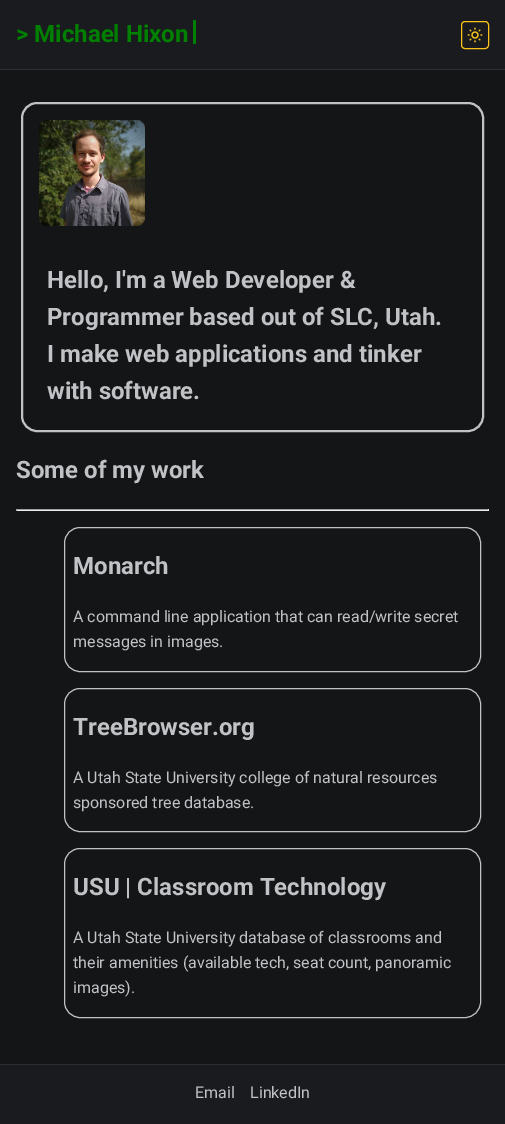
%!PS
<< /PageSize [505 1124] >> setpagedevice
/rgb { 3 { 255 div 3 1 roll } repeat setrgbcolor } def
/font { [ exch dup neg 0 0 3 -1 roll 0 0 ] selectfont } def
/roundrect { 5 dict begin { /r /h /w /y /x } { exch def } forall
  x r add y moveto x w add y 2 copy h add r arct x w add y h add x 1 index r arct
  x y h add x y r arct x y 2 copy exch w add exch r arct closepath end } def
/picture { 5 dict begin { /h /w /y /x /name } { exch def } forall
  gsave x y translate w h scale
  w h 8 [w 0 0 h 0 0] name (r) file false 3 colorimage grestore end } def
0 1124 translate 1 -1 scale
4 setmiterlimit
20 21 23 rgb
0 0 505 1124 rectfill
[
  [0 0 505 69 26 27 30]
  [0 69 505 1 44 46 51]
  [193 20 3 24 0 128 0]
] { aload pop rgb rectfill } forall
252 196 25 rgb
461.5 21.5 27 27 3.5 roundrect stroke
(img/1.rgb) 467 27 16 16 picture
193 194 197 rgb
2 setlinewidth
22 103 461 328 15 roundrect stroke
(img/2.rgb) 39 120 106 106 picture
[
  [16 509 473 1 159 159 159]
  [488 509 1 2 238 238 238]
  [16 510 473 1 238 238 238]
  [16 509 1 2 159 159 159]
] { aload pop rgb rectfill } forall
193 194 197 rgb
1 setlinewidth
64.5 527.5 416 144 15.5 roundrect stroke
64.5 688.5 416 143 15.5 roundrect stroke
64.5 848.5 416 169 15.5 roundrect stroke
26 27 30 rgb
0 1065 505 59 rectfill
44 46 51 rgb
0 1064 505 1 rectfill
/Roboto-Bold 24 font
0 128 0 rgb
16 42 moveto (> Michael Hixon) show
193 194 197 rgb
[
  [(Hello, I'm a Web Developer &) 47 288]
  [(Programmer based out of SLC, Utah.) 47 325]
  [(I make web applications and tinker) 47 362]
  [(with software.) 47 399]
  [(Some of my work) 16 478]
  [(Monarch) 73 574]
] { aload pop moveto show } forall
/Roboto-Regular 16 font
73 622 moveto (A command line application that can read/write secret) show
73 647 moveto (messages in images.) show
/Roboto-Bold 24 font
73 735 moveto (TreeBrowser.org) show
/Roboto-Regular 16 font
73 783 moveto (A Utah State University college of natural resources) show
73 808 moveto (sponsored tree database.) show
/Roboto-Bold 24 font
73 895 moveto (USU | Classroom Technology) show
/Roboto-Regular 16 font
[
  [(A Utah State University database of classrooms and) 73 943]
  [(their amenities \(available tech, seat count, panoramic) 73 968]
  [(images\).) 73 993]
  [(Email) 195 1098]
  [(LinkedIn) 250 1098]
] { aload pop moveto show } forall
showpage
